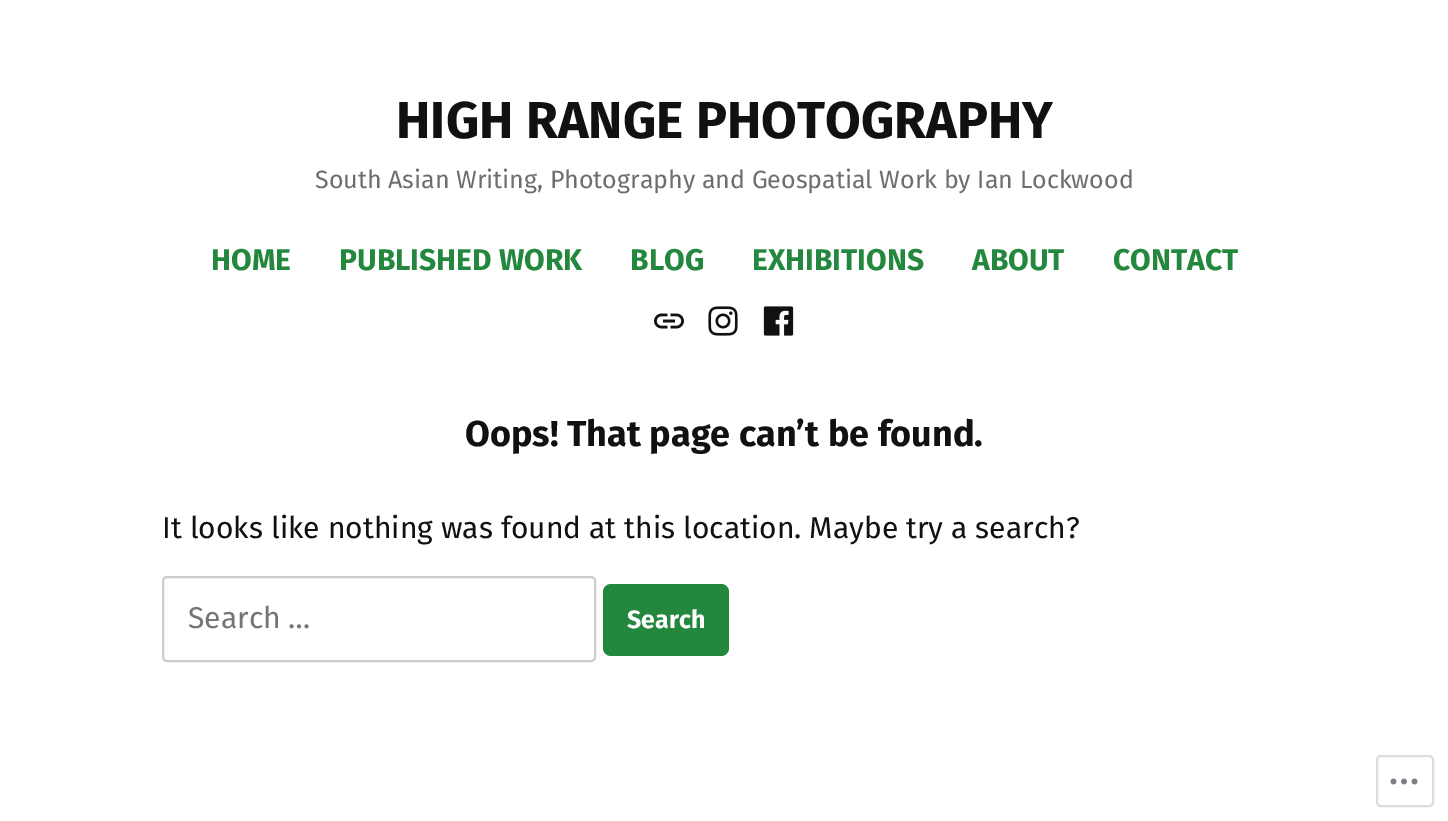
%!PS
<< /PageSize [1448 821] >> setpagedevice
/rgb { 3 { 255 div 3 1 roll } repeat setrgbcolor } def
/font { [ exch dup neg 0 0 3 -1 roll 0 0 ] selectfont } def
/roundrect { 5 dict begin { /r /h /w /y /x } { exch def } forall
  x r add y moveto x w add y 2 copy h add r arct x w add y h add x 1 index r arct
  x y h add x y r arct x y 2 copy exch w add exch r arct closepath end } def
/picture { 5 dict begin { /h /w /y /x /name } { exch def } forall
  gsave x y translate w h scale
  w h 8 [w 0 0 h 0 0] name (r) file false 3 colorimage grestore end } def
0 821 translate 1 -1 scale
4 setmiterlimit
255 255 255 rgb
0 0 1448 821 rectfill
(img/1.rgb) 654 313 30 16 picture
(img/2.rgb) 708 306 30 30 picture
(img/3.rgb) 763 306 31 30 picture
204 204 204 rgb
2 setlinewidth
163 577 432 84 4 roundrect stroke
35 136 61 rgb
603 584 126 72 8 roundrect fill
221 221 223 rgb
1377 756 56 50 4 roundrect stroke
(img/4.rgb) 1390 778 28 7 picture
/FiraSans-Bold 51.8 font
17 17 17 rgb
396 138 moveto (HIGH RANGE PHOTOGRAPHY) show
/FiraSans-Regular 25 font
110 110 110 rgb
315 188 moveto (South Asian Writing, Photography and Geospatial Work by Ian Lockwood) show
/FiraSans-Bold 30 font
35 136 61 rgb
[
  [(HOME) 211 270]
  [(PUBLISHED WORK) 339 270]
  [(BLOG) 630 270]
  [(EXHIBITIONS) 752 270]
  [(ABOUT) 972 270]
  [(CONTACT) 1113 270]
] { aload pop moveto show } forall
/FiraSans-Bold 36 font
17 17 17 rgb
465 446 moveto (Oops! That page can’t be found.) show
/FiraSans-Regular 30 font
162 538 moveto (It looks like nothing was found at this location. Maybe try a search?) show
117 117 117 rgb
188 628 moveto (Search …) show
/FiraSans-Bold 25 font
255 255 255 rgb
627 628 moveto (Search) show
showpage
